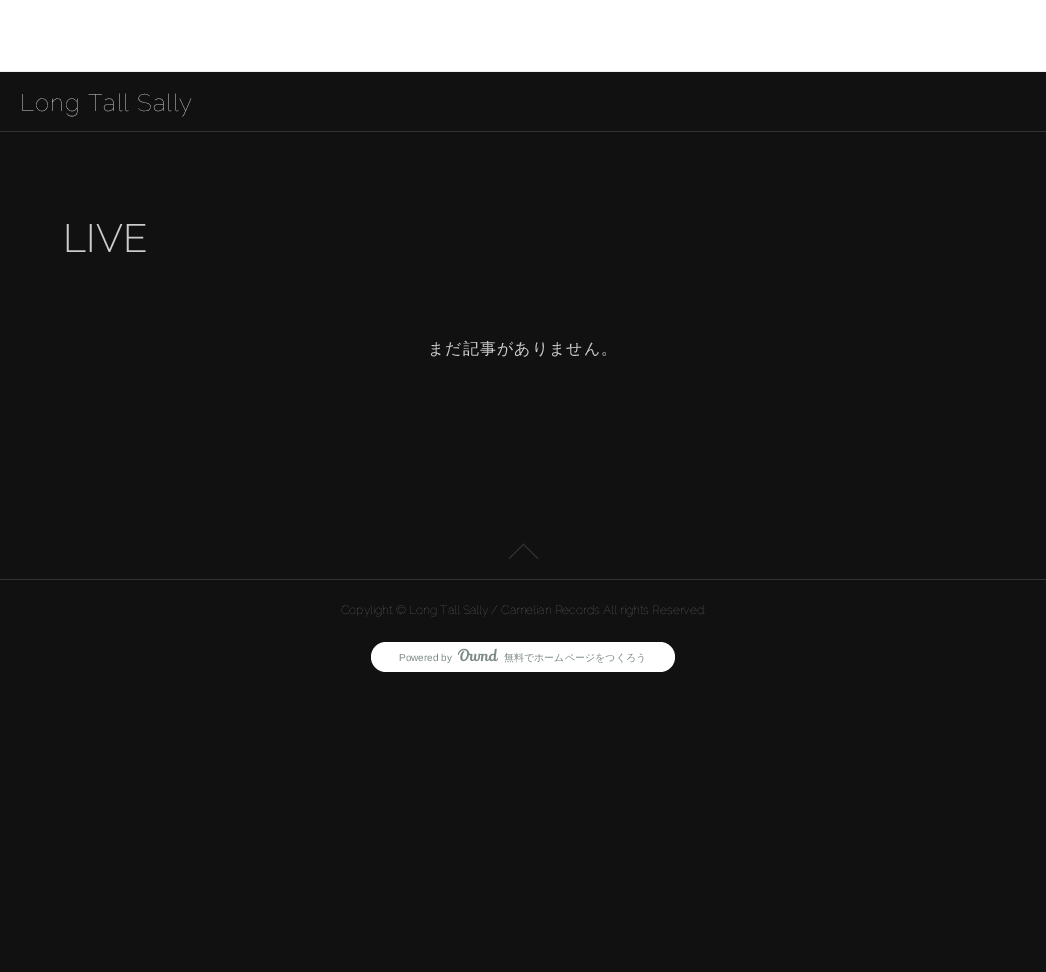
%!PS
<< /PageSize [1046 972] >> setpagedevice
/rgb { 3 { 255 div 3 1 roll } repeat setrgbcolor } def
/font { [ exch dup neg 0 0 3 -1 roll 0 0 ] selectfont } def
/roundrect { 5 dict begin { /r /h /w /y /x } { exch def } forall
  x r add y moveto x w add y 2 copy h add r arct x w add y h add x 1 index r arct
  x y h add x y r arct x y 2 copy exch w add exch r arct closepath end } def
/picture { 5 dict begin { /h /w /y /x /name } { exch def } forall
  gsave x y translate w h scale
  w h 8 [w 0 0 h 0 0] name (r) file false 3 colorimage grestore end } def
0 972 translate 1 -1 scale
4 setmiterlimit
17 17 17 rgb
0 0 1046 972 rectfill
[
  [0 0 1046 71 255 255 255]
  [0 71 1046 1 238 238 238]
  [0 131 1046 1 51 51 51]
] { aload pop rgb rectfill } forall
508.5 558.5 moveto 523.5 543.5 lineto 524 544.5 lineto 509.5 559 lineto closepath fill
523 544.5 moveto 523.5 543.5 lineto 538.5 558.5 lineto 537.5 559 lineto closepath fill
0 579 1046 1 rectfill
255 255 255 rgb
371 642 304 30 15 roundrect fill
(img/1.rgb) 457 648 42 14 picture
/Raleway-Thin 24 font
204 204 204 rgb
20 111 moveto 1 0 (Long Tall Sally) ashow
/Raleway-Bold 38 font
63 252 moveto 1 0 (LIVE) ashow
/WenQuanYiZenHei-Medium 16 font
428 354 moveto 1 0 (まだ記事がありません。) ashow
/Raleway-Thin 12 font
111 111 111 rgb
341 614 moveto (Copylight © Long Tall Sally / Carnelian Records All rights Reserved.) show
/LiberationSans-Regular 10 font
125 139 136 rgb
399 661 moveto (Powered by) show
/WenQuanYiZenHei-Medium 10 font
504 661 moveto (無料でホームページをつくろう) show
showpage
